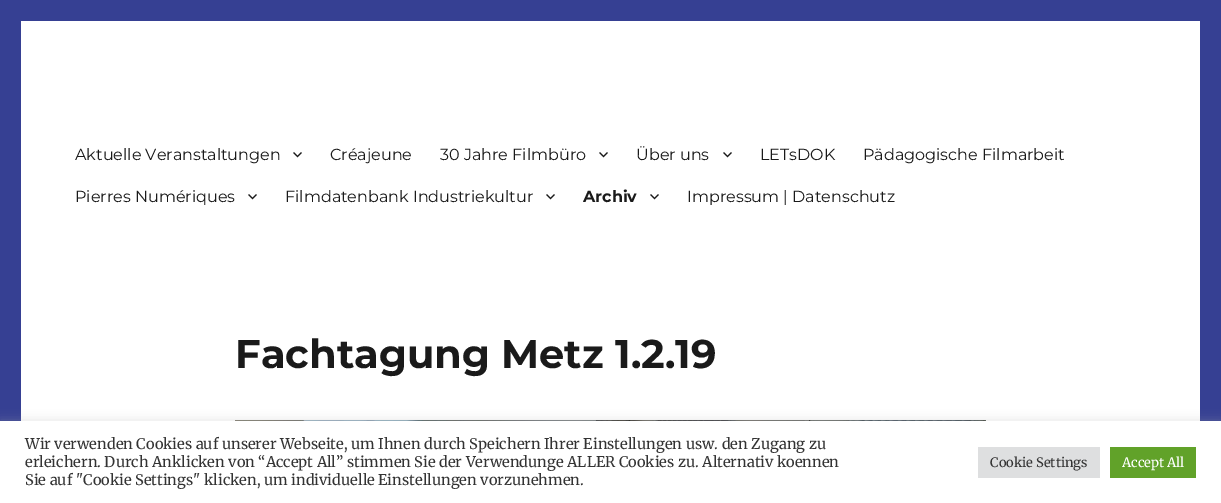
%!PS
<< /PageSize [1221 503] /PageUsesTransparency true >> setpagedevice
/rgb { 3 { 255 div 3 1 roll } repeat setrgbcolor } def
/font { [ exch dup neg 0 0 3 -1 roll 0 0 ] selectfont } def
/alpha { dup .setfillconstantalpha .setstrokeconstantalpha } def
/roundrect { 5 dict begin { /r /h /w /y /x } { exch def } forall
  x r add y moveto x w add y 2 copy h add r arct x w add y h add x 1 index r arct
  x y h add x y r arct x y 2 copy exch w add exch r arct closepath end } def
/shadow { 12 dict begin { /a /b /q /h /w /y /x } { exch def } forall gsave /was 0 def
  9 -2 -9 { dup b mul 4 div /e exch def 1 sub .425 mul 2.718 exch exp 1 add a .99 .min exch div /now exch def
    1 1 now sub 1 was sub div sub alpha /was now def
    w h .min e 2 mul add 0 gt { x e sub y e sub w e 2 mul add h e 2 mul add
      q e add b .6 mul add w h .min 2 div e add .min 0 .max roundrect fill } if } for grestore end } def
/picture { 5 dict begin { /h /w /y /x /name } { exch def } forall
  gsave x y translate w h scale
  w h 8 [w 0 0 h 0 0] name (r) file false 3 colorimage grestore end } def
0 .pushpdf14devicefilter
0 503 translate 1 -1 scale
4 setmiterlimit
54 64 147 rgb
0 0 1221 503 rectfill
255 255 255 rgb
21 21 1179 400 rectfill
(img/1.rgb) 293 152 9 6 picture
(img/1.rgb) 599 152 9 6 picture
(img/1.rgb) 723 152 9 6 picture
(img/1.rgb) 248 194 9 6 picture
(img/1.rgb) 546 194 9 6 picture
(img/1.rgb) 650 194 9 6 picture
(img/2.rgb) 235 420 751 1 picture
172 171 171 rgb
0 420 1221 82 0 5 0.3 shadow
[
  [0 421 1221 82 255 255 255]
  [978 447 122 31 222 223 224]
  [1110 447 86 31 97 162 41]
] { aload pop rgb rectfill } forall
/Montserrat-Regular 16 font
26 26 26 rgb
[
  [(Aktuelle Veranstaltungen) 75 160]
  [(Créajeune) 330 160]
  [(30 Jahre Filmbüro) 440 160]
  [(Über uns) 636 160]
  [(LETsDOK) 760 160]
  [(Pädagogische Filmarbeit) 863 160]
  [(Pierres Numériques) 75 202]
  [(Filmdatenbank Industriekultur) 285 202]
] { aload pop moveto show } forall
/Montserrat-Bold 16 font
583 202 moveto (Archiv) show
/Montserrat-Regular 16 font
687 202 moveto (Impressum | Datenschutz) show
/Montserrat-Bold 40 font
235 368 moveto (Fachtagung Metz 1.2.19) show
/Merriweather-Regular 14.67 font
51 51 51 rgb
[
  [(Wir verwenden Cookies auf unserer Webseite, um Ihnen durch Speichern Ihrer Einstellungen usw. den Zugang zu) 25 449]
  [(erleichern. Durch Anklicken von “Accept All” stimmen Sie der Verwendunge ALLER Cookies zu. Alternativ koennen) 25 467]
  [(Sie auf "Cookie Settings" klicken, um individuelle Einstellungen vorzunehmen.) 25 485]
] { aload pop moveto show } forall
/Merriweather-Regular 13 font
990 467 moveto (Cookie Settings) show
255 255 255 rgb
1122 467 moveto (Accept All) show
.poppdf14devicefilter showpage
